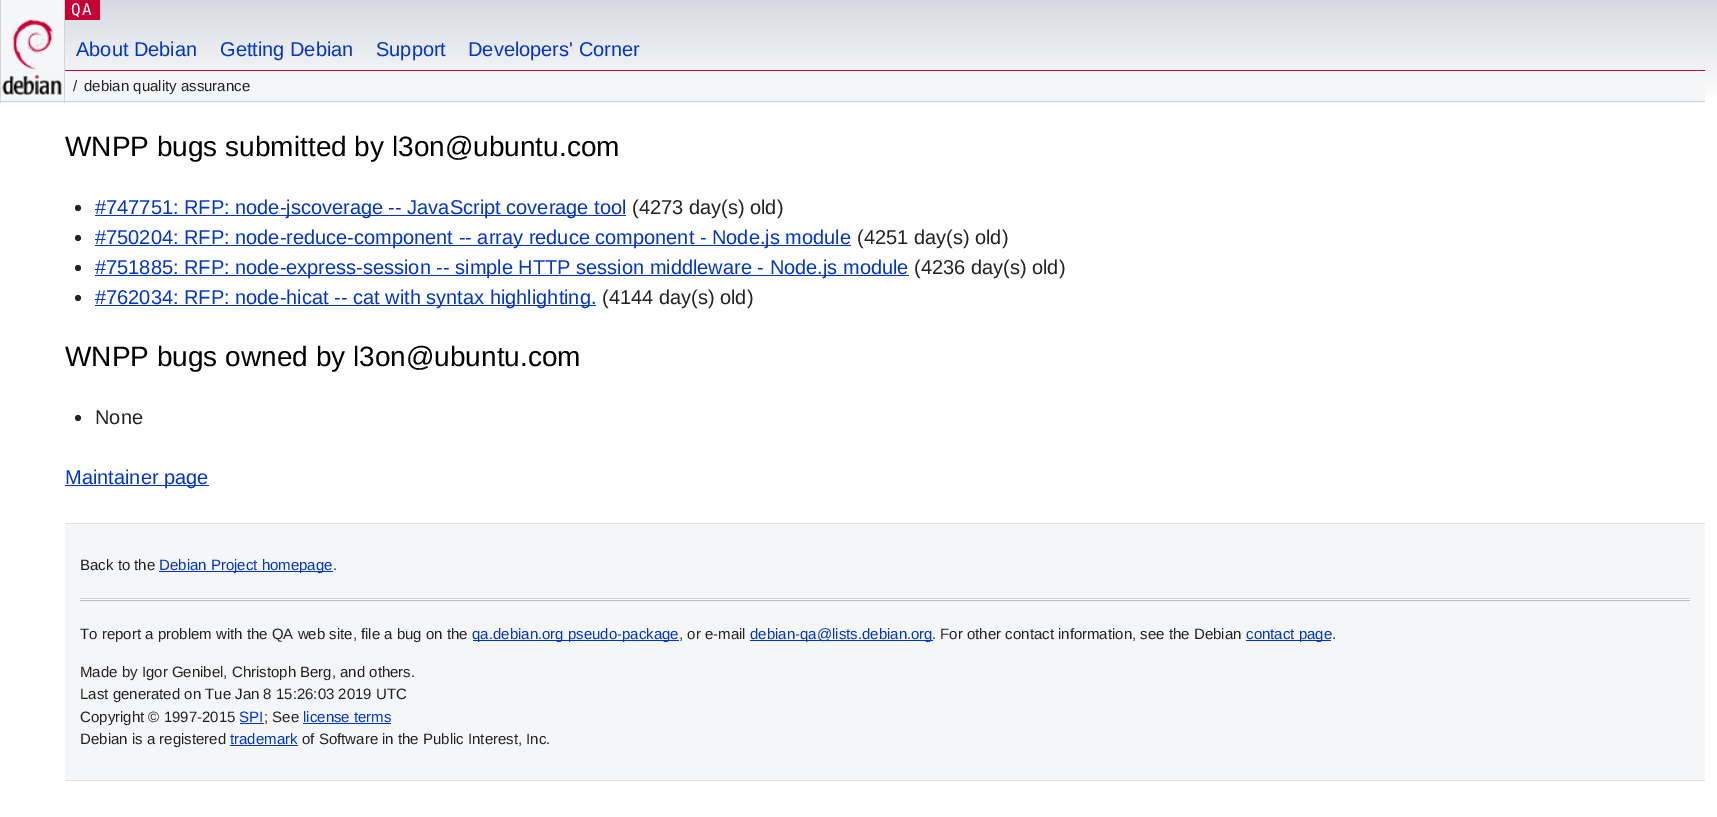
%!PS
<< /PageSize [1717 817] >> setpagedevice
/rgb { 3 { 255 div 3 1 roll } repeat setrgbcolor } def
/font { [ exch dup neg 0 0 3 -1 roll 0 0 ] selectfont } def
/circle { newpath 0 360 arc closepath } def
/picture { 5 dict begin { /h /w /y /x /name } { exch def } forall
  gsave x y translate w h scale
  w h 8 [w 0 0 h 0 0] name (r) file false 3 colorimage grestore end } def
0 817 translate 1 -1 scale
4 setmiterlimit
255 255 255 rgb
0 0 1717 817 rectfill
gsave 65 0 moveto 1717 0 lineto 1717 97 lineto 65 97 lineto closepath clip newpath
<< /ShadingType 2 /ColorSpace /DeviceRGB /Coords [859 0 859 103] /Extend [true true] /Function << /FunctionType 2 /Domain [0 1] /C0 [0.843 0.851 0.886] /C1 [1 1 1] /N 1 >> >> shfill grestore
[
  [1 0 63 103 245 246 247]
  [64 0 1 103 210 211 215]
  [0 101 65 1 210 211 215]
  [0 0 1 103 210 211 215]
] { aload pop rgb rectfill } forall
(img/1.rgb) 2 19 60 76 picture
[
  [65 0 35 20 199 0 54]
  [65 70 1640 1 199 0 54]
  [65 71 1640 32 245 246 247]
  [65 101 1640 1 210 211 215]
] { aload pop rgb rectfill } forall
34 34 34 rgb
78 208 3 circle fill
0 53 199 rgb
95 215 531 1 rectfill
34 34 34 rgb
78 238 3 circle fill
0 53 199 rgb
95 245 756 1 rectfill
34 34 34 rgb
78 268 3 circle fill
0 53 199 rgb
95 275 814 1 rectfill
34 34 34 rgb
78 298 3 circle fill
0 53 199 rgb
95 305 501 1 rectfill
34 34 34 rgb
78 418 3 circle fill
[
  [65 485 144 1 0 53 199]
  [65 524 1640 256 245 246 247]
  [65 523 1640 1 223 223 224]
  [65 780 1640 1 223 223 224]
  [159 571 174 1 0 53 199]
  [80 600 1610 1 187 187 187]
  [80 598 1610 1 210 211 215]
  [80 599 1610 1 255 255 255]
  [473 640 206 1 0 53 199]
  [750 640 183 1 0 53 199]
  [1246 640 85 1 0 53 199]
  [240 723 24 1 0 53 199]
  [303 723 88 1 0 53 199]
  [230 745 68 1 0 53 199]
] { aload pop rgb rectfill } forall
/DejaVuSansMono-Regular 16 font
255 255 255 rgb
71 15 moveto 1 0 (QA) ashow
/LiberationSans-Regular 20 font
0 53 199 rgb
[
  [(About Debian) 76 56]
  [(Getting Debian) 220 56]
  [(Support) 376 56]
  [(Developers' Corner) 468 56]
] { aload pop moveto show } forall
/LiberationSans-Regular 15 font
34 34 34 rgb
73 91 moveto (/) show
84 91 moveto (debian quality assurance) show
/LiberationSans-Regular 28 font
0 0 0 rgb
65 156 moveto (WNPP bugs submitted by l3on@ubuntu.com) show
/LiberationSans-Regular 20 font
0 53 199 rgb
95 214 moveto (#747751: RFP: node-jscoverage -- JavaScript coverage tool) show
34 34 34 rgb
632 214 moveto (\(4273 day\(s\) old\)) show
0 53 199 rgb
95 244 moveto (#750204: RFP: node-reduce-component -- array reduce component - Node.js module) show
34 34 34 rgb
857 244 moveto (\(4251 day\(s\) old\)) show
0 53 199 rgb
95 274 moveto (#751885: RFP: node-express-session -- simple HTTP session middleware - Node.js module) show
34 34 34 rgb
914 274 moveto (\(4236 day\(s\) old\)) show
0 53 199 rgb
95 304 moveto (#762034: RFP: node-hicat -- cat with syntax highlighting.) show
34 34 34 rgb
602 304 moveto (\(4144 day\(s\) old\)) show
/LiberationSans-Regular 28 font
0 0 0 rgb
65 366 moveto (WNPP bugs owned by l3on@ubuntu.com) show
/LiberationSans-Regular 20 font
34 34 34 rgb
95 424 moveto (None) show
0 53 199 rgb
65 484 moveto (Maintainer page) show
/LiberationSans-Regular 15 font
34 34 34 rgb
80 570 moveto (Back to the) show
0 53 199 rgb
159 570 moveto (Debian Project homepage) show
34 34 34 rgb
333 570 moveto (.) show
80 639 moveto (To report a problem with the QA web site, file a bug on the) show
0 53 199 rgb
472 639 moveto (qa.debian.org pseudo-package) show
34 34 34 rgb
679 639 moveto (, or e-mail) show
0 53 199 rgb
750 639 moveto (debian-qa@lists.debian.org) show
34 34 34 rgb
932 639 moveto (. For other contact information, see the Debian) show
0 53 199 rgb
1246 639 moveto (contact page) show
34 34 34 rgb
[
  [(.) 1332 639]
  [(Made by Igor Genibel, Christoph Berg, and others.) 80 677]
  [(Last generated on Tue Jan 8 15:26:03 2019 UTC) 80 699]
  [(Copyright © 1997-2015) 80 722]
] { aload pop moveto show } forall
0 53 199 rgb
239 722 moveto (SPI) show
34 34 34 rgb
264 722 moveto (; See) show
0 53 199 rgb
303 722 moveto (license terms) show
34 34 34 rgb
80 744 moveto (Debian is a registered) show
0 53 199 rgb
230 744 moveto (trademark) show
34 34 34 rgb
302 744 moveto (of Software in the Public Interest, Inc.) show
showpage
